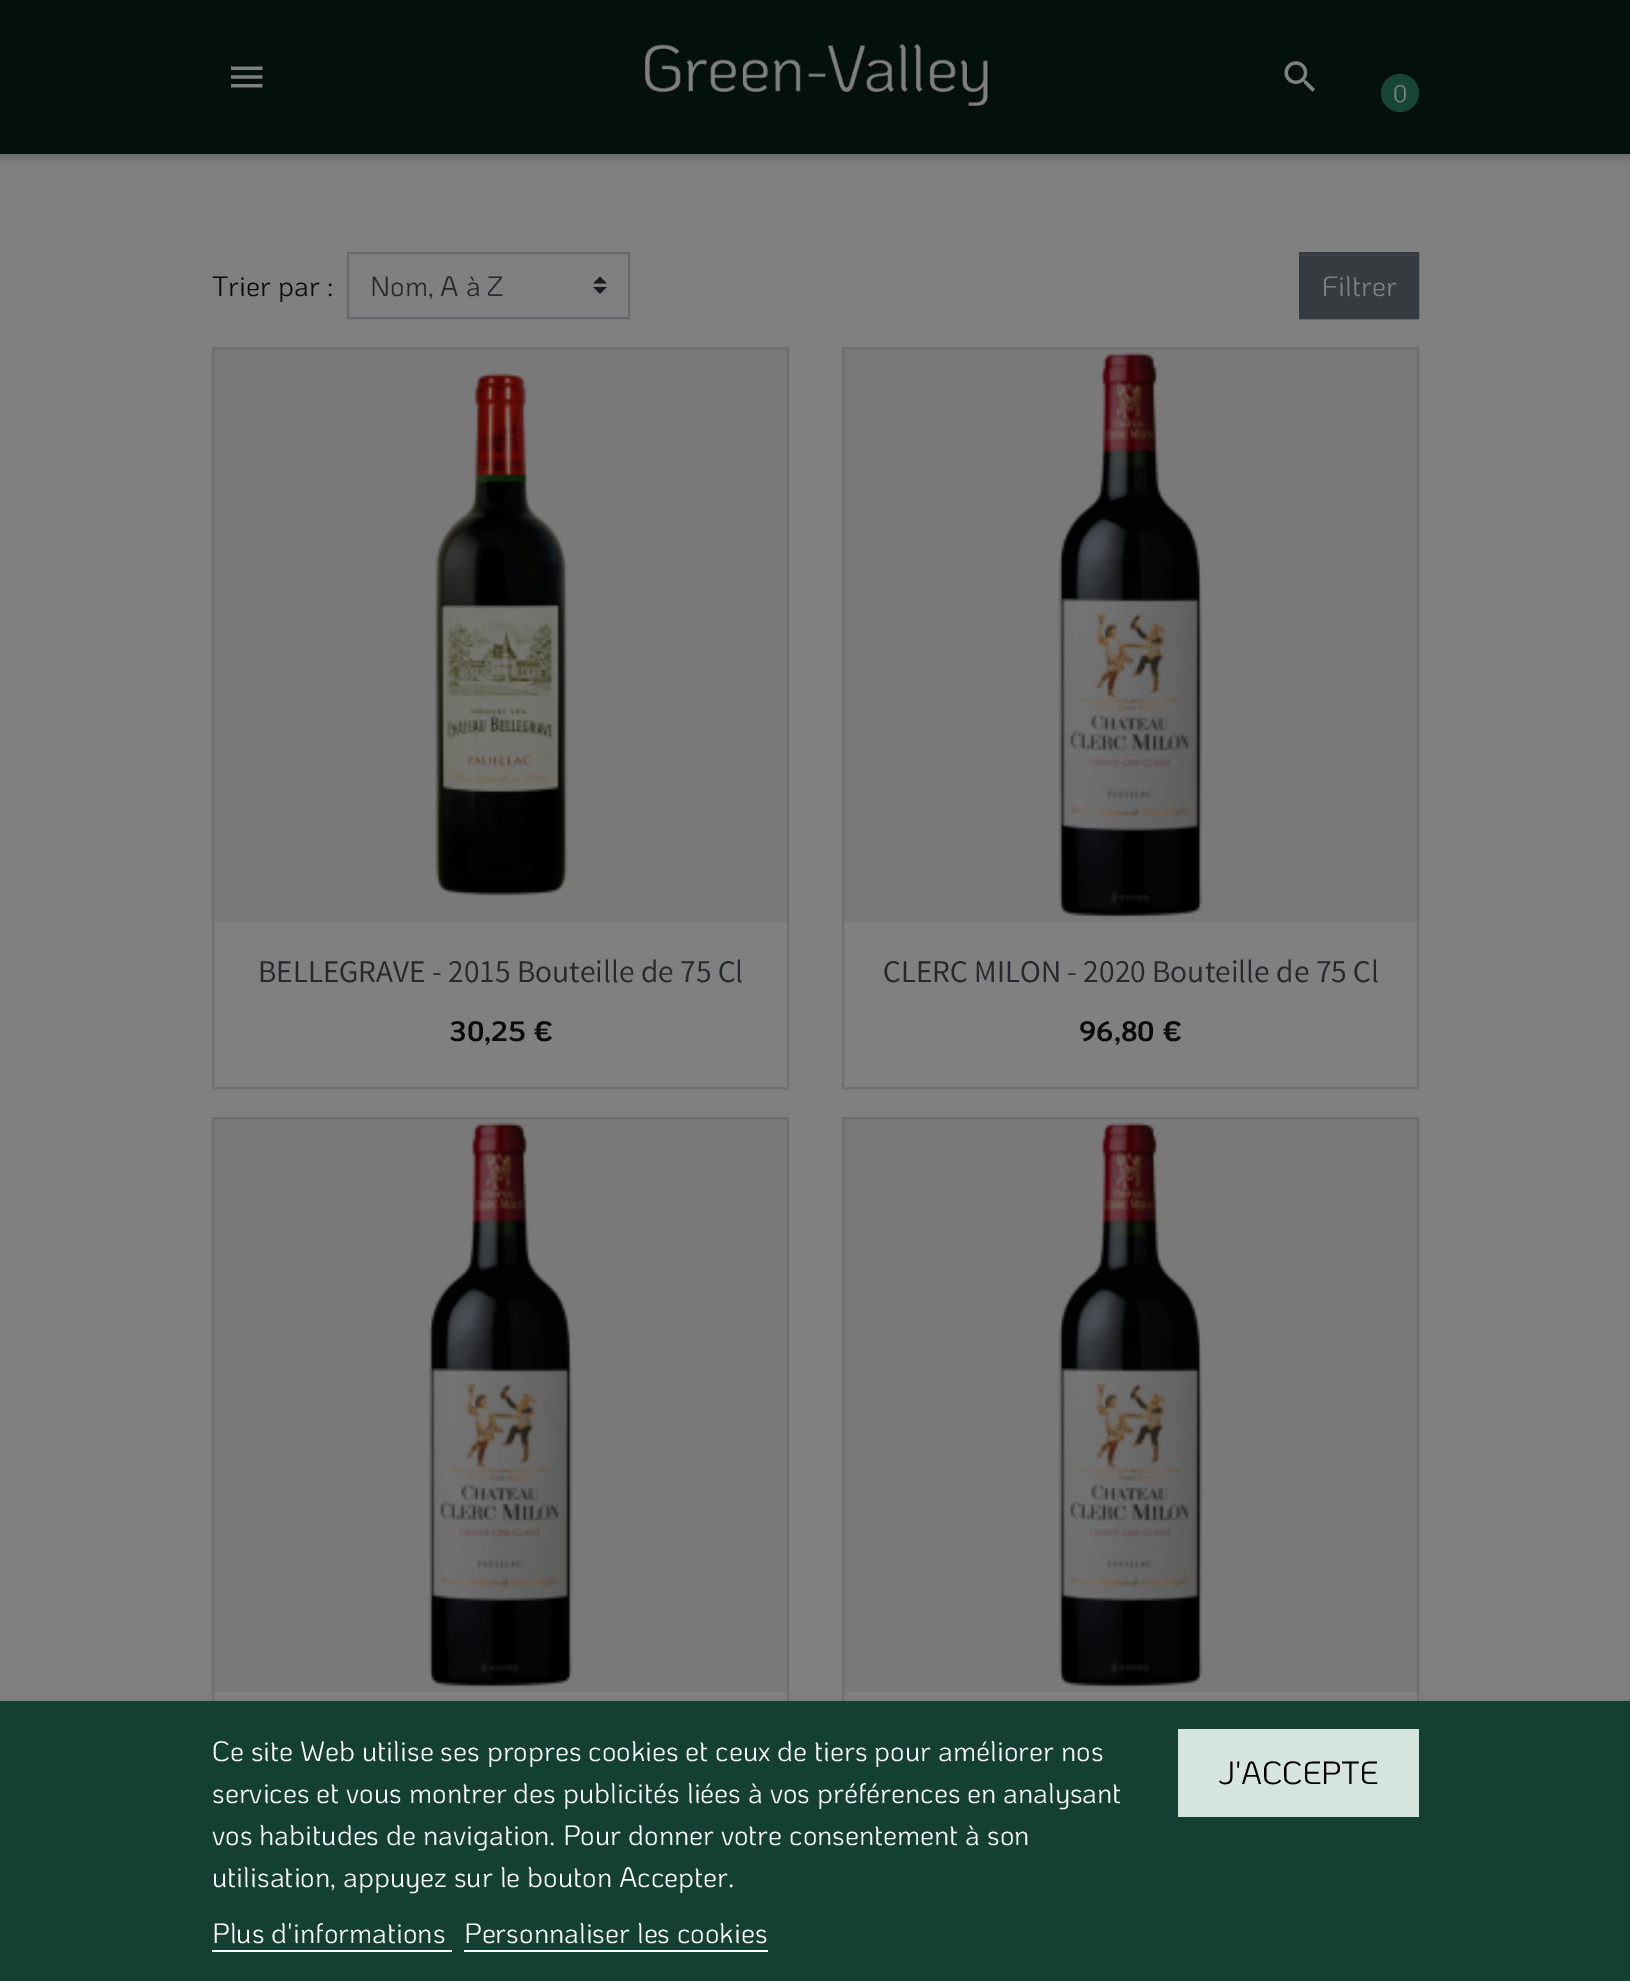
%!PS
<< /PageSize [1630 1981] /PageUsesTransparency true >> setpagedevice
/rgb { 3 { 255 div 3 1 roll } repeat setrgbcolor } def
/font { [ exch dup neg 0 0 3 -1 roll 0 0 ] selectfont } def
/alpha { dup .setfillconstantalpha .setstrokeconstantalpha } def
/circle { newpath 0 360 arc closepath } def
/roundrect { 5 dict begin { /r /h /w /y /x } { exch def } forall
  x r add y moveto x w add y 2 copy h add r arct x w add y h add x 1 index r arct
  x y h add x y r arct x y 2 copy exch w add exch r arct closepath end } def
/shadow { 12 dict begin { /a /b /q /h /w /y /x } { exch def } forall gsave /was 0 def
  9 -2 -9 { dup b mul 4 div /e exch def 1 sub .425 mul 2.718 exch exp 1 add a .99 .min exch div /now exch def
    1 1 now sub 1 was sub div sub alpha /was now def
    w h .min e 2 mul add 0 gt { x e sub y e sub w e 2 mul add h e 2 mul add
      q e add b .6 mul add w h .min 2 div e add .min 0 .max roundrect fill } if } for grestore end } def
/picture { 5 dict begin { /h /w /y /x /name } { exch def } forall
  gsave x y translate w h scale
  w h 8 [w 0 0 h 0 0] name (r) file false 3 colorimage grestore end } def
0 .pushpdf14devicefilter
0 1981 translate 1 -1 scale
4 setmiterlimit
128 128 128 rgb
0 0 1630 1981 rectfill
0 0 0 rgb
0 4 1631 154 0 5 0.2 shadow
4 16 14 rgb
0 0 1630 154 rectfill
(img/1.rgb) 231 66 32 22 picture
(img/2.rgb) 644 43 344 63 picture
(img/3.rgb) 1284 61 31 31 picture
23 70 57 rgb
1400 93 19 circle fill
26 29 32 rgb
600 276.5 moveto 593 283.5 lineto 607 283.5 lineto closepath 600 294 moveto 593 287 lineto 607 287 lineto closepath fill
103 106 109 rgb
2 setlinewidth
348 253 281 65 rectstroke
54 59 63 rgb
1301 256 116 61 rectfill
65 69 73 rgb
1300 254 118 2 rectfill
54 59 63 rgb
1300 253 118 65 rectstroke
112 112 112 rgb
213 348 575 740 rectstroke
0.05 alpha
0 0 0 rgb
214 348 574 574 rectfill
1 alpha
(img/4.rgb) 435 373 133 523 picture
112 112 112 rgb
843 348 575 740 rectstroke
0.05 alpha
0 0 0 rgb
844 348 574 574 rectfill
1 alpha
(img/5.rgb) 1058 352 145 566 picture
112 112 112 rgb
213 1118 575 738 rectstroke
0.05 alpha
0 0 0 rgb
214 1118 574 574 rectfill
1 alpha
(img/5.rgb) 428 1122 145 566 picture
112 112 112 rgb
843 1118 575 738 rectstroke
0.05 alpha
0 0 0 rgb
844 1118 574 574 rectfill
1 alpha
(img/5.rgb) 1058 1122 145 566 picture
112 112 112 rgb
0 1703 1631 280 0 4.5 1 shadow
[
  [0 1701 1630 280 20 63 51]
  [212 1950 240 2 255 255 255]
  [464 1950 304 2 255 255 255]
  [1178 1729 241 88 213 229 222]
] { aload pop rgb rectfill } forall
/KoHo-Regular 24 font
128 128 128 rgb
1393 102 moveto (0) show
/KoHo-Regular 28 font
11 12 12 rgb
212 296 moveto (Trier par :) show
37 40 44 rgb
370 296 moveto (Nom, A à Z) show
128 128 128 rgb
1322 296 moveto (Filtrer) show
/Varta-Regular 31.5 font
37 40 44 rgb
258 982 moveto (BELLEGRAVE - 2015 Bouteille de 75 Cl) show
/KoHo-Bold 28 font
11 12 12 rgb
449 1041 moveto (30,25 €) show
/Varta-Regular 31.5 font
37 40 44 rgb
883 982 moveto (CLERC MILON - 2020 Bouteille de 75 Cl) show
/KoHo-Bold 28 font
11 12 12 rgb
1079 1041 moveto (96,80 €) show
/KoHo-Regular 28 font
255 255 255 rgb
[
  [(Ce site Web utilise ses propres cookies et ceux de tiers pour améliorer nos) 212 1761]
  [(services et vous montrer des publicités liées à vos préférences en analysant) 212 1803]
  [(vos habitudes de navigation. Pour donner votre consentement à son) 212 1845]
  [(utilisation, appuyez sur le bouton Accepter.) 212 1887]
  [(Plus d'informations) 212 1943]
  [(Personnaliser les cookies) 464 1943]
] { aload pop moveto show } forall
/KoHo-Regular 32 font
0 0 0 rgb
1218 1784 moveto (J'ACCEPTE) show
.poppdf14devicefilter showpage
